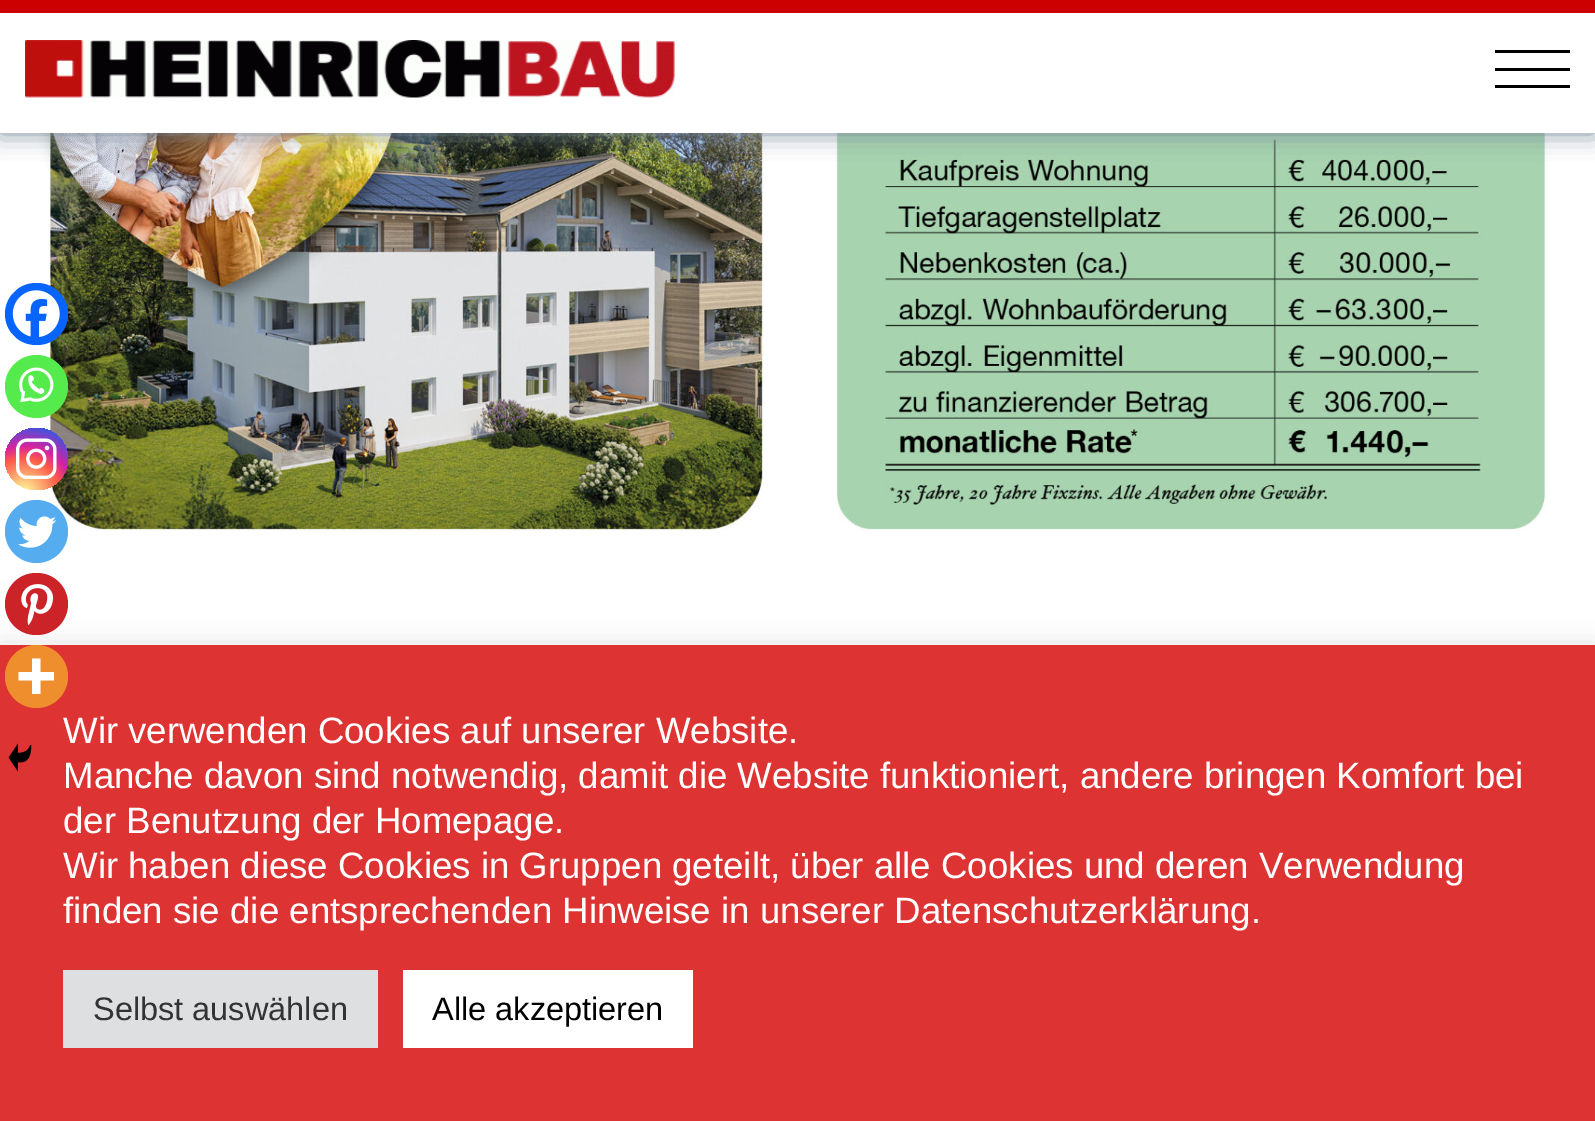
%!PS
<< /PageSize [1595 1121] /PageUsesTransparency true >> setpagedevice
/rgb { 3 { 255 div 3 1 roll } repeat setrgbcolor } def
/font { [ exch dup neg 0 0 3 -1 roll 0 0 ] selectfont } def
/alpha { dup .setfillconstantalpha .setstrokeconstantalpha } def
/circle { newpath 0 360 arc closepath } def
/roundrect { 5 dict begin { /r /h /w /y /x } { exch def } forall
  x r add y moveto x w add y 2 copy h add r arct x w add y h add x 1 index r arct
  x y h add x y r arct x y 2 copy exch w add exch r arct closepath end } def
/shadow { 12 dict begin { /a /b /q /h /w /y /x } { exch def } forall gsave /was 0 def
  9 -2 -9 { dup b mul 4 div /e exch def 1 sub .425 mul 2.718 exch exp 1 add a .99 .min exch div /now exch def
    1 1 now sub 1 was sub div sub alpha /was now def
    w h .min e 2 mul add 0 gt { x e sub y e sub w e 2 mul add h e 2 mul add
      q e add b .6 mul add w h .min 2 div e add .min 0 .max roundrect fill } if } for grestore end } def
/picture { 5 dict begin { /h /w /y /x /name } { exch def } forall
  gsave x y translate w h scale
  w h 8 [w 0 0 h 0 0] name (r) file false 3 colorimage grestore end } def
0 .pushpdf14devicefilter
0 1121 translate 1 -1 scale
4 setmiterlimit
255 255 255 rgb
0 0 1595 1121 rectfill
(img/8.rgb) 38 133 726 398 picture
(img/9.rgb) 836 133 728 398 picture
119 136 153 rgb
0 13 1595 120 0 12.5 1 shadow
255 255 255 rgb
0 13 1595 120 rectfill
(img/1.rgb) 25 40 650 58 picture
[
  [1495 50 75 3 0 0 0]
  [1495 68 75 3 0 0 0]
  [1495 85 75 3 0 0 0]
  [0 0 1595 13 204 0 0]
] { aload pop rgb rectfill } forall
7 101 254 rgb
5 283 63 62 31 roundrect fill
(img/2.rgb) 12 290 48 47 picture
85 235 76 rgb
36.5 386.5 31.5 circle fill
(img/3.rgb) 19 367 35 36 picture
gsave 5 428 63 62 31 roundrect clip newpath 24 494 translate 80 80 scale
<< /ShadingType 3 /ColorSpace /DeviceRGB /Coords [0 0 0 0 0 1] /Extend [true true] /Function << /FunctionType 3 /Domain [0 1] /Functions [<< /FunctionType 2 /Domain [0 1] /C0 [0.992 0.957 0.592] /C1 [0.992 0.957 0.592] /N 1 >> << /FunctionType 2 /Domain [0 1] /C0 [0.992 0.957 0.592] /C1 [0.992 0.349 0.286] /N 1 >> << /FunctionType 2 /Domain [0 1] /C0 [0.992 0.349 0.286] /C1 [0.839 0.141 0.624] /N 1 >> << /FunctionType 2 /Domain [0 1] /C0 [0.839 0.141 0.624] /C1 [0.157 0.353 0.922] /N 1 >> << /FunctionType 2 /Domain [0 1] /C0 [0.157 0.353 0.922] /C1 [0.157 0.353 0.922] /N 1 >>] /Bounds [0.05 0.45 0.6 0.9] /Encode [0 1 0 1 0 1 0 1 0 1] >> >> shfill grestore
(img/4.rgb) 16 438 41 41 picture
85 172 238 rgb
36.5 531.5 31.5 circle fill
(img/5.rgb) 18 516 39 32 picture
172 171 171 rgb
0 643 1595 477 0 12.5 0.3 shadow
204 35 41 rgb
5 573 63 62 31 roundrect fill
(img/6.rgb) 21 584 32 42 picture
221 51 51 rgb
0 645 1595 476 rectfill
238 142 45 rgb
36.5 676.5 31.5 circle fill
255 255 255 rgb
40.5 672 moveto 40.5 658.5 lineto 32 658.5 lineto 32 672 lineto 18.5 672 lineto 18.5 680.5 lineto 32 680.5 lineto 32 694 lineto 40.5 694 lineto 40.5 680.5 lineto 54 680.5 lineto 54 672 lineto closepath eofill
(img/7.rgb) 8 743 24 29 picture
222 223 224 rgb
63 970 315 78 rectfill
255 255 255 rgb
403 970 290 78 rectfill
/LiberationSans-Regular 36.65 font
[
  [(Wir verwenden Cookies auf unserer Website.) 63 743]
  [(Manche davon sind notwendig, damit die Website funktioniert, andere bringen Komfort bei) 63 788]
  [(der Benutzung der Homepage.) 63 833]
  [(Wir haben diese Cookies in Gruppen geteilt, über alle Cookies und deren Verwendung) 63 878]
  [(finden sie die entsprechenden Hinweise in unserer Datenschutzerklärung.) 63 923]
] { aload pop moveto show } forall
/LiberationSans-Regular 32.5 font
51 51 51 rgb
93 1020 moveto (Selbst auswählen) show
0 0 0 rgb
432 1020 moveto (Alle akzeptieren) show
.poppdf14devicefilter showpage
